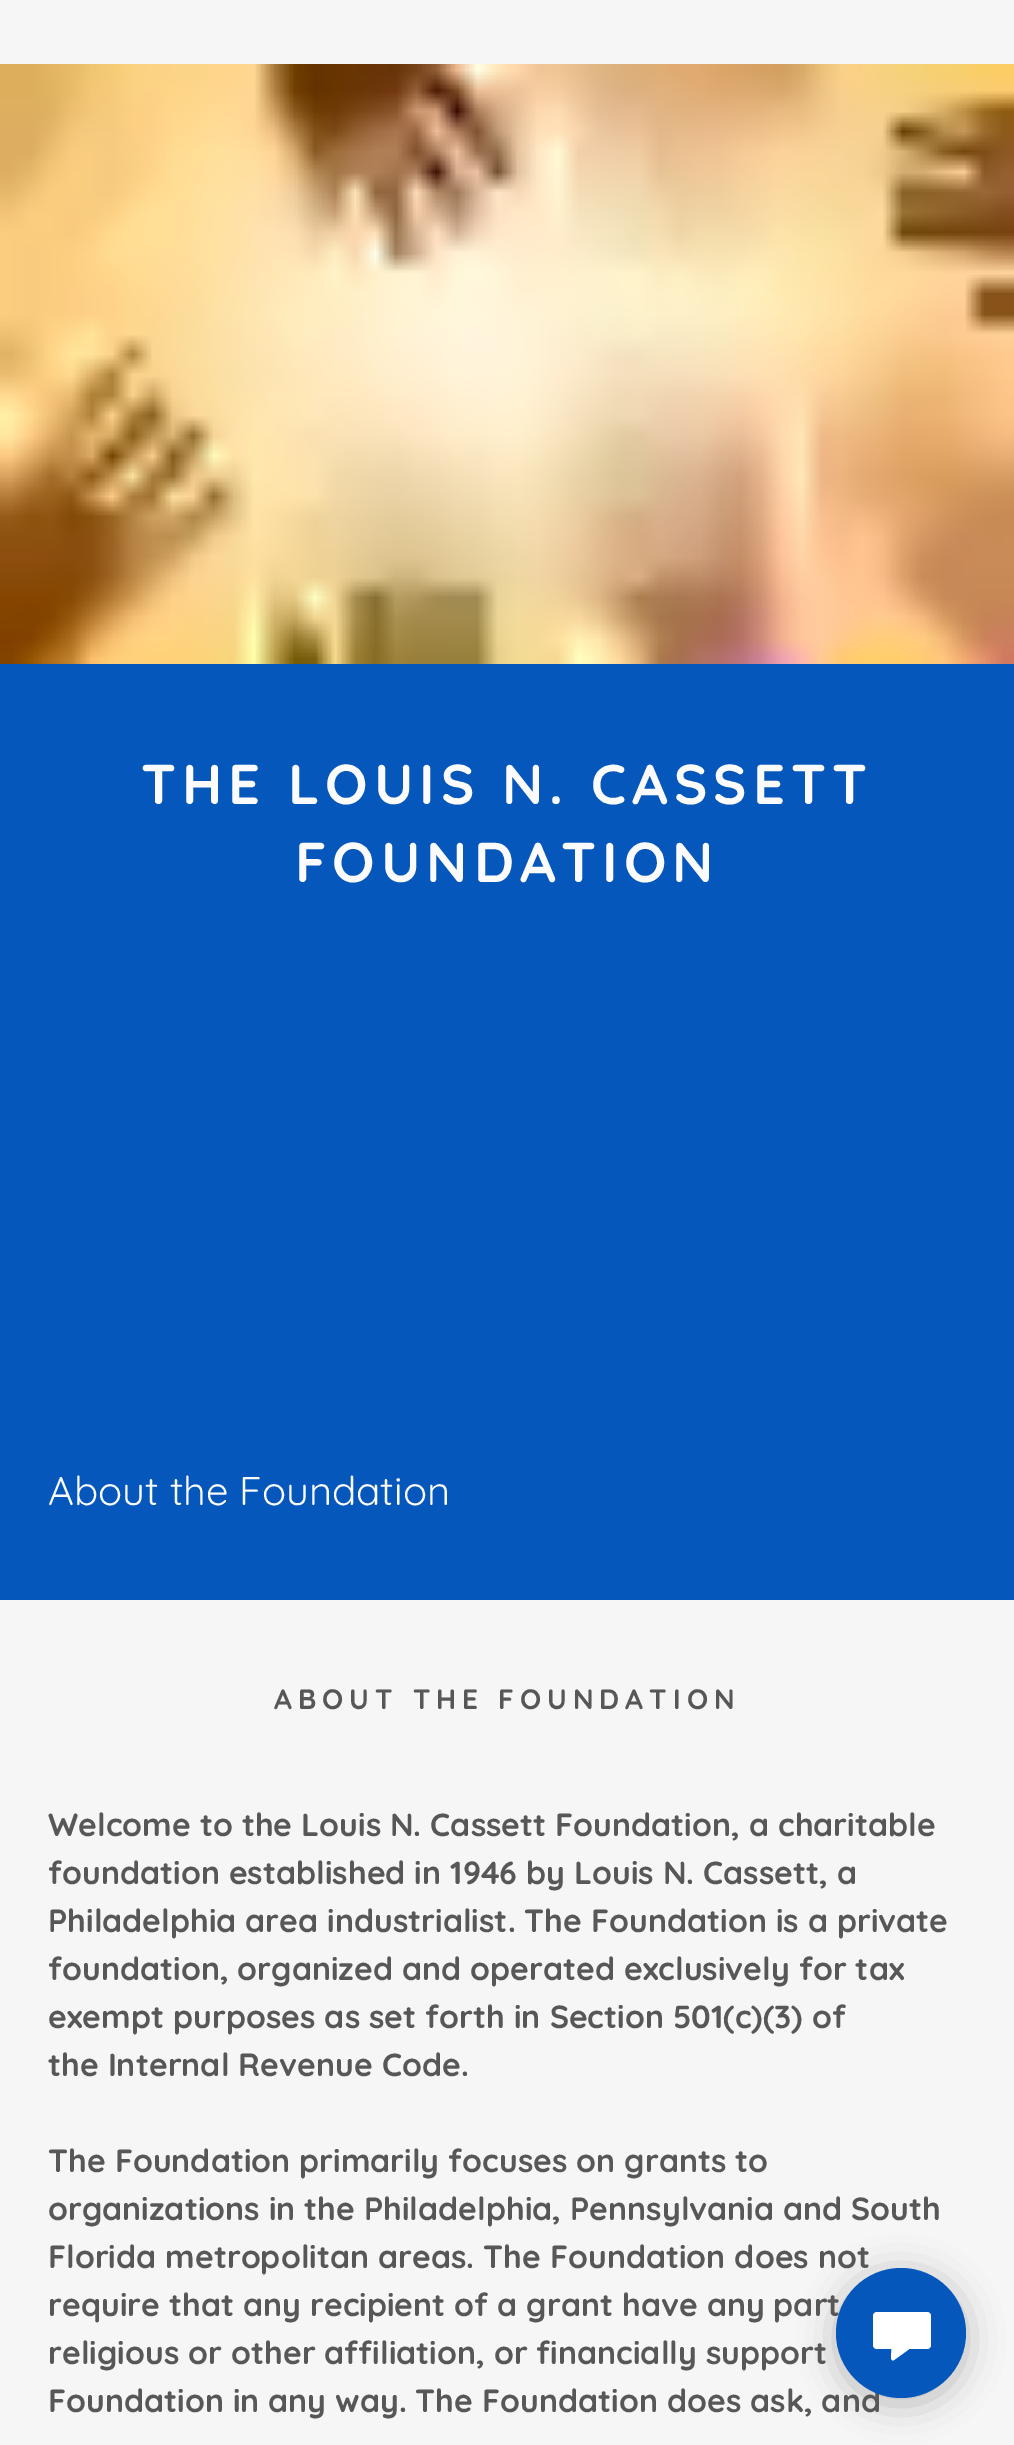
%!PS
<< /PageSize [1014 2445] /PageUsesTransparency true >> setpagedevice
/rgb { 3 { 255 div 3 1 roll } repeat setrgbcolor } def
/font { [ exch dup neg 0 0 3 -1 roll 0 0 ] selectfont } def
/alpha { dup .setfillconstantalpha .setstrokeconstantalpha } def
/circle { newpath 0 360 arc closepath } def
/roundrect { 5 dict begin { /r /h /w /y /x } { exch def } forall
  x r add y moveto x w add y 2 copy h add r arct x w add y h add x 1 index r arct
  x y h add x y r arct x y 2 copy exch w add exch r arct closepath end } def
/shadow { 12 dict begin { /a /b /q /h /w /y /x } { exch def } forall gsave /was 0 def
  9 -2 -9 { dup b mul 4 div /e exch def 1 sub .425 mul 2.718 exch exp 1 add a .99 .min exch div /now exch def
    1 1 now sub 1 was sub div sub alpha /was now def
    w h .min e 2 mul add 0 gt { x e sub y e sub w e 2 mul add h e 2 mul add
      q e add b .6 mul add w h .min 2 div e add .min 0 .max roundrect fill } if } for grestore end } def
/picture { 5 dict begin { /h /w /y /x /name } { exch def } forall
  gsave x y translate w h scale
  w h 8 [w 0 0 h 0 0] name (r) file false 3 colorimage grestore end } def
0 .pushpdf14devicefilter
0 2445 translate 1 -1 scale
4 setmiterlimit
246 246 246 rgb
0 0 1014 2445 rectfill
6 87 188 rgb
0 664 1014 936 rectfill
(img/1.rgb) 0 64 1014 600 picture
0 0 0 rgb
836 2274 130 130 65 18 0.25 shadow
/Quicksand-Bold 56 font
251 251 251 rgb
141 804 moveto 6 0 (THE LOUIS N. CASSETT) ashow
295 882 moveto 6 0 (FOUNDATION) ashow
/Quicksand-Regular 40 font
48 1505 moveto (About the Foundation) show
/Quicksand-Bold 28 font
87 87 87 rgb
274 1709 moveto 6 0 (ABOUT THE FOUNDATION) ashow
/Quicksand-Bold 32 font
[
  [(Welcome to the Louis N. Cassett Foundation, a charitable) 48 1836]
  [(foundation established in 1946 by Louis N. Cassett, a) 48 1884]
  [(Philadelphia area industrialist. The Foundation is a private) 48 1932]
  [(foundation, organized and operated exclusively for tax) 48 1980]
  [(exempt purposes as set forth in Section 501\(c\)\(3\) of) 48 2028]
  [(the Internal Revenue Code.) 48 2076]
  [(The Foundation primarily focuses on grants to) 48 2172]
  [(organizations in the Philadelphia, Pennsylvania and South) 48 2220]
  [(Florida metropolitan areas. The Foundation does not) 48 2268]
  [(require that any recipient of a grant have any part) 48 2316]
  [(religious or other affiliation, or financially support) 48 2364]
  [(Foundation in any way. The Foundation does ask, and) 48 2412]
] { aload pop moveto show } forall
6 87 188 rgb
901 2333 65 circle fill
255 255 255 rgb
873 2312 58 37 4 roundrect fill
891 2358 moveto 891.5 2348 lineto 891.5 2347 892.5 2346 893.5 2346 curveto 907 2346 lineto 909 2346 910 2349 908 2350 curveto 894 2360 lineto 893.5 2360.5 892.5 2360.5 892 2360 curveto 891.5 2359.5 891 2359 891 2358 curveto closepath fill
.poppdf14devicefilter showpage
